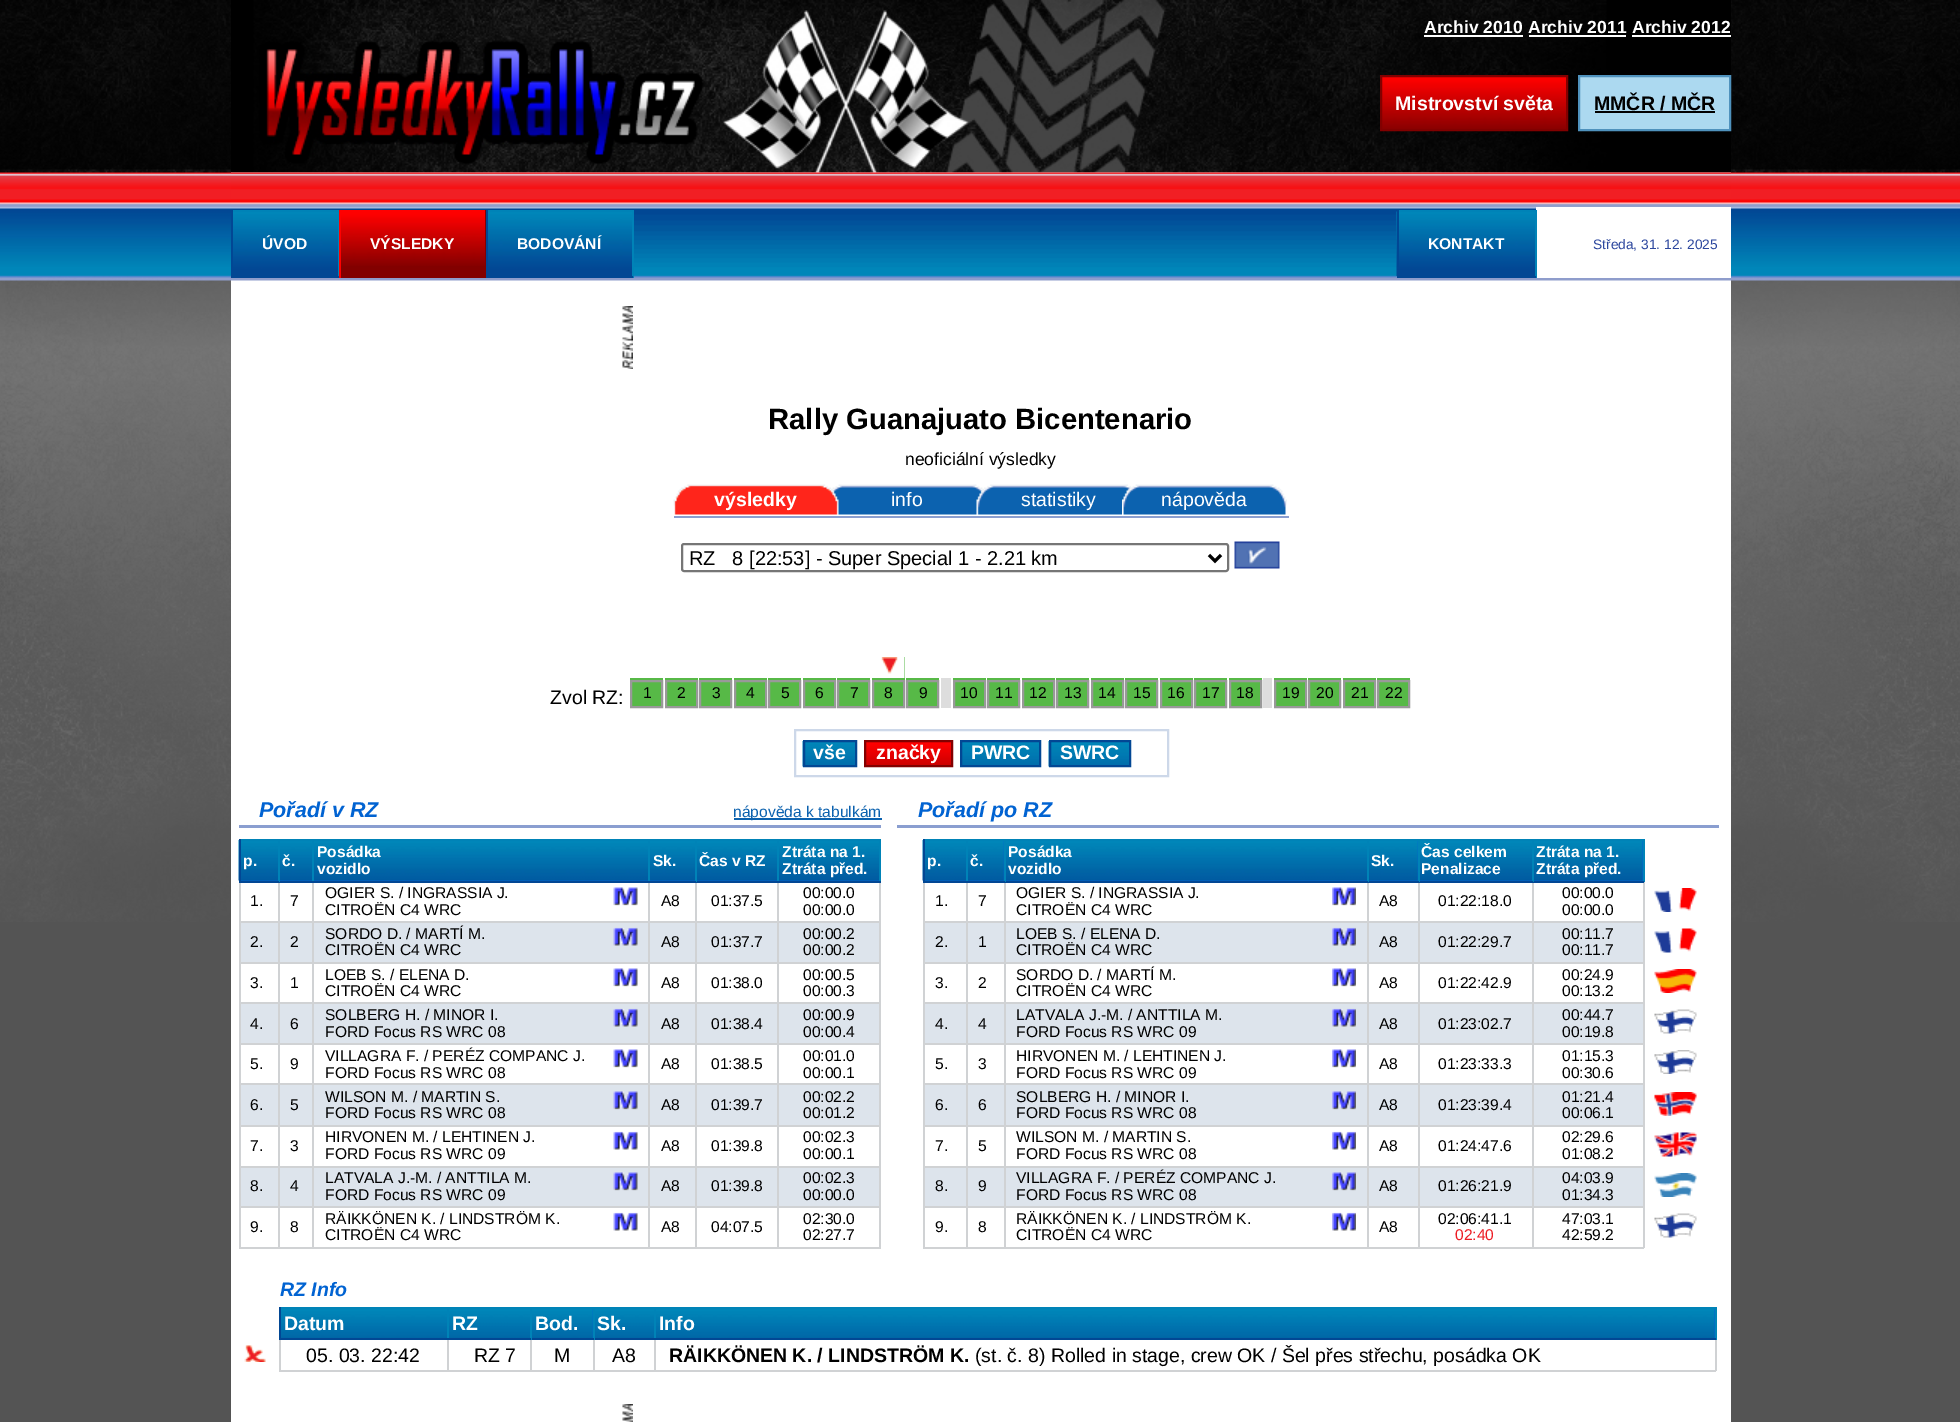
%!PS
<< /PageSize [1960 1422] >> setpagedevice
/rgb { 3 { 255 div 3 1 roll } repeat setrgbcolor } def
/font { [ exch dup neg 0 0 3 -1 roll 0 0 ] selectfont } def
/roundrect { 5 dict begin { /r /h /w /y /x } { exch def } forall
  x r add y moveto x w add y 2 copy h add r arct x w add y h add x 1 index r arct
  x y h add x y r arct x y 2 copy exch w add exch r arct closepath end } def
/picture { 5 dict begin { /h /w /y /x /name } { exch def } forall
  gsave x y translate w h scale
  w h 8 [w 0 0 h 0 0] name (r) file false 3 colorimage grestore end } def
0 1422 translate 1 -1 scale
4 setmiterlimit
84 84 84 rgb
0 0 1960 1422 rectfill
(img/1.rgb) 0 0 1960 922 picture
255 255 255 rgb
231 172 1500 1250 rectfill
(img/2.rgb) 231 0 1500 173 picture
[
  [1424 35 99 2 255 255 255]
  [1529 35 97 2 255 255 255]
  [1632 35 99 2 255 255 255]
] { aload pop rgb rectfill } forall
(img/3.rgb) 1382 77 184 52 picture
130 0 0 rgb
2 setlinewidth
1381 76 186 54 rectstroke
172 217 240 rgb
1579 76 moveto 1730 76 lineto 1730 130 lineto 1579 130 lineto closepath gsave fill grestore
79 146 189 rgb
stroke
0 0 0 rgb
1595 111 120 2 rectfill
(img/4.rgb) 231 172 1500 109 picture
(img/5.rgb) 233 212 105 64 picture
[
  [231 210 108 2 0 131 183]
  [338 210 1 68 0 131 183]
  [231 276 108 2 2 71 148]
  [231 210 2 68 2 71 148]
  [341 266 144 12 130 0 0]
] { aload pop rgb rectfill } forall
(img/6.rgb) 341 212 144 54 picture
[
  [339 210 147 2 255 0 0]
  [485 210 1 68 130 0 0]
  [339 210 2 68 255 0 0]
] { aload pop rgb rectfill } forall
(img/7.rgb) 488 212 144 64 picture
[
  [486 210 147 2 0 131 183]
  [632 210 2 68 0 131 183]
  [486 276 147 2 2 71 148]
  [486 210 2 68 2 71 148]
] { aload pop rgb rectfill } forall
(img/8.rgb) 1396 211 139 65 picture
[
  [1397 210 139 2 0 131 183]
  [1536 207 195 71 255 255 255]
  [1535 210 2 68 0 131 183]
  [1397 276 139 2 2 71 148]
  [1397 210 2 57 2 71 148]
] { aload pop rgb rectfill } forall
(img/9.rgb) 622 306 11 63 picture
138 158 208 rgb
674 516 615 2 rectfill
(img/11.rgb) 830 484 155 31 picture
(img/10.rgb) 673 484 166 31 picture
(img/12.rgb) 976 484 157 31 picture
(img/13.rgb) 1122 484 165 31 picture
118 118 118 rgb
682 544 546 27 2 roundrect stroke
0 0 0 rgb
3 setlinewidth
1209 555 moveto 1215 561 lineto 1221 555 lineto stroke
(img/14.rgb) 1234 541 46 28 picture
87 185 71 rgb
630 678 33 28 rectfill
153 153 153 rgb
2 setlinewidth
631 681 31 26 rectstroke
87 185 71 rgb
665 678 33 28 rectfill
153 153 153 rgb
666 681 31 26 rectstroke
87 185 71 rgb
699 678 33 28 rectfill
153 153 153 rgb
700 681 31 26 rectstroke
87 185 71 rgb
734 678 33 28 rectfill
153 153 153 rgb
735 681 31 26 rectstroke
87 185 71 rgb
768 678 33 28 rectfill
153 153 153 rgb
769 681 31 26 rectstroke
87 185 71 rgb
803 678 33 28 rectfill
153 153 153 rgb
804 681 31 26 rectstroke
87 185 71 rgb
837 678 33 28 rectfill
153 153 153 rgb
838 681 31 26 rectstroke
87 185 71 rgb
872 657 33 49 rectfill
(img/15.rgb) 872 657 33 21 picture
153 153 153 rgb
873 681 31 26 rectstroke
87 185 71 rgb
906 678 33 28 rectfill
153 153 153 rgb
907 681 31 26 rectstroke
221 221 221 rgb
941 678 10 30 rectfill
87 185 71 rgb
953 678 33 28 rectfill
153 153 153 rgb
954 681 31 26 rectstroke
87 185 71 rgb
987 678 33 28 rectfill
153 153 153 rgb
988 681 31 26 rectstroke
87 185 71 rgb
1022 678 33 28 rectfill
153 153 153 rgb
1023 681 31 26 rectstroke
87 185 71 rgb
1056 678 33 28 rectfill
153 153 153 rgb
1057 681 31 26 rectstroke
87 185 71 rgb
1091 678 33 28 rectfill
153 153 153 rgb
1092 681 31 26 rectstroke
87 185 71 rgb
1125 678 33 28 rectfill
153 153 153 rgb
1126 681 31 26 rectstroke
87 185 71 rgb
1160 678 33 28 rectfill
153 153 153 rgb
1161 681 31 26 rectstroke
87 185 71 rgb
1194 678 33 28 rectfill
153 153 153 rgb
1195 681 31 26 rectstroke
87 185 71 rgb
1229 678 33 28 rectfill
153 153 153 rgb
1230 681 31 26 rectstroke
221 221 221 rgb
1263 678 9 30 rectfill
87 185 71 rgb
1274 678 33 28 rectfill
153 153 153 rgb
1275 681 31 26 rectstroke
87 185 71 rgb
1308 678 33 28 rectfill
153 153 153 rgb
1309 681 31 26 rectstroke
87 185 71 rgb
1343 678 33 28 rectfill
153 153 153 rgb
1344 681 31 26 rectstroke
87 185 71 rgb
1377 678 33 28 rectfill
153 153 153 rgb
1378 681 31 26 rectstroke
205 216 233 rgb
795 730 373 46 rectstroke
(img/16.rgb) 802 741 53 26 picture
2 71 148 rgb
804 741 52 25 rectstroke
(img/17.rgb) 866 742 85 23 picture
130 0 0 rgb
865 741 87 25 rectstroke
(img/18.rgb) 962 742 77 23 picture
2 71 148 rgb
961 741 79 25 rectstroke
(img/19.rgb) 1048 741 81 26 picture
1050 741 80 25 rectstroke
[
  [239 825 642 3 138 158 208]
  [734 818 148 2 12 98 175]
  [241 880 37 1 1 99 210]
] { aload pop rgb rectfill } forall
(img/20.rgb) 238 840 40 41 picture
[
  [239 839 642 2 0 131 183]
  [777 921 104 2 208 210 212]
  [777 962 104 2 208 210 212]
  [777 1002 104 2 208 210 212]
  [777 1043 104 2 208 210 212]
  [777 1083 104 2 208 210 212]
  [777 1125 104 2 208 210 212]
  [777 1166 104 2 208 210 212]
  [777 1206 104 2 208 210 212]
  [879 1206 2 42 208 210 212]
  [879 1166 2 42 208 210 212]
  [879 1125 2 42 208 210 212]
  [879 1083 2 44 208 210 212]
  [879 1043 2 42 208 210 212]
  [879 1002 2 42 208 210 212]
  [879 962 2 42 208 210 212]
  [879 881 2 82 208 210 212]
  [879 839 2 43 0 131 183]
  [777 1247 104 2 208 210 212]
  [777 1206 2 42 208 210 212]
  [695 1206 84 2 208 210 212]
  [777 1166 2 42 208 210 212]
  [695 1166 84 2 208 210 212]
  [777 1125 2 42 208 210 212]
  [695 1125 84 2 208 210 212]
  [777 1083 2 44 208 210 212]
  [695 1083 84 2 208 210 212]
  [777 1043 2 42 208 210 212]
  [695 1043 84 2 208 210 212]
  [777 1002 2 42 208 210 212]
  [695 1002 84 2 208 210 212]
  [777 962 2 42 208 210 212]
  [695 962 84 2 208 210 212]
  [777 921 2 42 208 210 212]
  [695 921 84 2 208 210 212]
  [777 881 2 42 208 210 212]
  [777 881 104 2 2 71 148]
  [777 839 2 43 0 131 183]
  [695 1247 84 2 208 210 212]
  [695 1206 2 42 208 210 212]
  [648 1206 48 2 208 210 212]
  [695 1166 2 42 208 210 212]
  [648 1166 48 2 208 210 212]
  [695 1125 2 42 208 210 212]
  [648 1125 48 2 208 210 212]
  [695 1083 2 44 208 210 212]
  [648 1083 48 2 208 210 212]
  [695 1043 2 42 208 210 212]
  [648 1043 48 2 208 210 212]
  [695 1002 2 42 208 210 212]
  [648 1002 48 2 208 210 212]
  [695 962 2 42 208 210 212]
  [648 962 48 2 208 210 212]
  [695 921 2 42 208 210 212]
  [648 921 48 2 208 210 212]
  [695 881 2 42 208 210 212]
  [695 881 84 2 2 71 148]
  [695 839 2 43 0 131 183]
  [648 1247 48 2 208 210 212]
  [648 1206 2 42 208 210 212]
  [312 1206 338 2 208 210 212]
  [648 1166 2 42 208 210 212]
  [312 1166 338 2 208 210 212]
  [648 1125 2 42 208 210 212]
  [312 1125 338 2 208 210 212]
  [648 1083 2 44 208 210 212]
  [312 1083 338 2 208 210 212]
  [648 1043 2 42 208 210 212]
  [312 1043 338 2 208 210 212]
  [648 1002 2 42 208 210 212]
  [312 1002 338 2 208 210 212]
  [648 962 2 42 208 210 212]
  [312 962 338 2 208 210 212]
  [648 921 2 42 208 210 212]
  [312 921 338 2 208 210 212]
  [648 881 2 42 208 210 212]
  [648 881 48 2 2 71 148]
  [648 839 2 43 0 131 183]
  [312 1247 338 2 208 210 212]
  [312 1206 2 42 208 210 212]
  [278 1206 36 2 208 210 212]
  [312 1166 2 42 208 210 212]
  [278 1166 36 2 208 210 212]
  [312 1125 2 42 208 210 212]
  [278 1125 36 2 208 210 212]
  [312 1083 2 44 208 210 212]
  [278 1083 36 2 208 210 212]
  [312 1043 2 42 208 210 212]
  [278 1043 36 2 208 210 212]
  [312 1002 2 42 208 210 212]
  [278 1002 36 2 208 210 212]
  [312 962 2 42 208 210 212]
  [278 962 36 2 208 210 212]
  [312 921 2 42 208 210 212]
  [278 921 36 2 208 210 212]
  [312 881 2 42 208 210 212]
  [312 881 338 2 2 71 148]
  [312 839 2 43 0 131 183]
  [278 1247 36 2 208 210 212]
  [278 1206 2 42 208 210 212]
  [239 1206 40 2 208 210 212]
  [278 1166 2 42 208 210 212]
  [239 1166 40 2 208 210 212]
  [278 1125 2 42 208 210 212]
  [239 1125 40 2 208 210 212]
  [278 1083 2 44 208 210 212]
  [239 1083 40 2 208 210 212]
  [278 1043 2 42 208 210 212]
  [239 1043 40 2 208 210 212]
  [278 1002 2 42 208 210 212]
  [239 1002 40 2 208 210 212]
  [278 962 2 42 208 210 212]
  [239 962 40 2 208 210 212]
  [278 921 2 42 208 210 212]
  [239 921 40 2 208 210 212]
  [278 881 2 42 208 210 212]
  [278 881 36 2 2 71 148]
  [278 839 2 43 0 131 183]
  [239 1247 40 2 208 210 212]
  [239 1206 2 42 208 210 212]
  [239 1166 2 42 208 210 212]
  [239 1125 2 42 208 210 212]
  [239 1083 2 44 208 210 212]
  [239 1043 2 42 208 210 212]
  [239 1002 2 42 208 210 212]
  [239 962 2 42 208 210 212]
  [239 881 2 82 208 210 212]
  [239 881 40 2 2 71 148]
  [239 839 2 43 2 71 148]
  [280 880 32 1 1 99 210]
] { aload pop rgb rectfill } forall
(img/21.rgb) 280 841 32 40 picture
314 880 334 1 rectfill
(img/22.rgb) 314 841 334 40 picture
650 880 45 1 rectfill
(img/23.rgb) 650 841 45 40 picture
697 880 80 1 rectfill
(img/24.rgb) 697 841 80 40 picture
779 880 100 1 rectfill
(img/25.rgb) 779 841 100 40 picture
(img/26.rgb) 613 887 25 19 picture
[
  [241 923 37 39 221 228 236]
  [280 923 32 39 221 228 236]
  [314 923 334 39 221 228 236]
] { aload pop rgb rectfill } forall
(img/27.rgb) 613 927 25 19 picture
[
  [650 923 45 39 221 228 236]
  [697 923 80 39 221 228 236]
  [779 923 100 39 221 228 236]
] { aload pop rgb rectfill } forall
(img/26.rgb) 613 968 25 19 picture
[
  [241 1004 37 39 221 228 236]
  [280 1004 32 39 221 228 236]
  [314 1004 334 39 221 228 236]
] { aload pop rgb rectfill } forall
(img/27.rgb) 613 1008 25 19 picture
[
  [650 1004 45 39 221 228 236]
  [697 1004 80 39 221 228 236]
  [779 1004 100 39 221 228 236]
] { aload pop rgb rectfill } forall
(img/28.rgb) 613 1049 25 19 picture
[
  [241 1085 37 40 221 228 236]
  [280 1085 32 40 221 228 236]
  [314 1085 334 40 221 228 236]
] { aload pop rgb rectfill } forall
(img/29.rgb) 613 1091 25 19 picture
[
  [650 1085 45 40 221 228 236]
  [697 1085 80 40 221 228 236]
  [779 1085 100 40 221 228 236]
] { aload pop rgb rectfill } forall
(img/30.rgb) 613 1131 25 19 picture
[
  [241 1168 37 38 221 228 236]
  [280 1168 32 38 221 228 236]
  [314 1168 334 38 221 228 236]
] { aload pop rgb rectfill } forall
(img/31.rgb) 613 1172 25 19 picture
[
  [650 1168 45 38 221 228 236]
  [697 1168 80 38 221 228 236]
  [779 1168 100 38 221 228 236]
] { aload pop rgb rectfill } forall
(img/30.rgb) 613 1212 25 19 picture
138 158 208 rgb
897 825 822 3 rectfill
1 99 210 rgb
925 880 41 1 rectfill
(img/32.rgb) 922 840 44 41 picture
968 841 36 40 rectfill
(img/33.rgb) 968 841 36 40 picture
1006 880 361 1 rectfill
(img/34.rgb) 1003 841 364 40 picture
1369 841 49 40 rectfill
(img/35.rgb) 1369 841 49 40 picture
1420 880 112 1 rectfill
(img/36.rgb) 1417 841 115 40 picture
[
  [923 839 721 2 0 131 183]
  [1532 921 112 2 208 210 212]
  [1532 962 112 2 208 210 212]
  [1532 1002 112 2 208 210 212]
  [1532 1043 112 2 208 210 212]
  [1532 1083 112 2 208 210 212]
  [1532 1125 112 2 208 210 212]
  [1532 1166 112 2 208 210 212]
  [1532 1206 112 2 208 210 212]
  [1643 1206 2 42 208 210 212]
  [1643 1166 2 42 208 210 212]
  [1643 1125 2 42 208 210 212]
  [1643 1083 2 44 208 210 212]
  [1643 1043 2 42 208 210 212]
  [1643 1002 2 42 208 210 212]
  [1643 962 2 42 208 210 212]
  [1643 881 2 82 208 210 212]
  [1643 839 2 43 0 131 183]
  [1532 1247 112 2 208 210 212]
  [1532 1206 2 42 208 210 212]
  [1418 1206 115 2 208 210 212]
  [1532 1166 2 42 208 210 212]
  [1418 1166 115 2 208 210 212]
  [1532 1125 2 42 208 210 212]
  [1418 1125 115 2 208 210 212]
  [1532 1083 2 44 208 210 212]
  [1418 1083 115 2 208 210 212]
  [1532 1043 2 42 208 210 212]
  [1418 1043 115 2 208 210 212]
  [1532 1002 2 42 208 210 212]
  [1418 1002 115 2 208 210 212]
  [1532 962 2 42 208 210 212]
  [1418 962 115 2 208 210 212]
  [1532 921 2 42 208 210 212]
  [1418 921 115 2 208 210 212]
  [1532 881 2 42 208 210 212]
  [1532 881 112 2 2 71 148]
  [1532 839 2 43 0 131 183]
  [1418 1247 115 2 208 210 212]
  [1418 1206 2 42 208 210 212]
  [1367 1206 52 2 208 210 212]
  [1418 1166 2 42 208 210 212]
  [1367 1166 52 2 208 210 212]
  [1418 1125 2 42 208 210 212]
  [1367 1125 52 2 208 210 212]
  [1418 1083 2 44 208 210 212]
  [1367 1083 52 2 208 210 212]
  [1418 1043 2 42 208 210 212]
  [1367 1043 52 2 208 210 212]
  [1418 1002 2 42 208 210 212]
  [1367 1002 52 2 208 210 212]
  [1418 962 2 42 208 210 212]
  [1367 962 52 2 208 210 212]
  [1418 921 2 42 208 210 212]
  [1367 921 52 2 208 210 212]
  [1418 881 2 42 208 210 212]
  [1418 881 115 2 2 71 148]
  [1418 839 2 43 0 131 183]
  [1367 1247 52 2 208 210 212]
  [1367 1206 2 42 208 210 212]
  [1004 1206 364 2 208 210 212]
  [1367 1166 2 42 208 210 212]
  [1004 1166 364 2 208 210 212]
  [1367 1125 2 42 208 210 212]
  [1004 1125 364 2 208 210 212]
  [1367 1083 2 44 208 210 212]
  [1004 1083 364 2 208 210 212]
  [1367 1043 2 42 208 210 212]
  [1004 1043 364 2 208 210 212]
  [1367 1002 2 42 208 210 212]
  [1004 1002 364 2 208 210 212]
  [1367 962 2 42 208 210 212]
  [1004 962 364 2 208 210 212]
  [1367 921 2 42 208 210 212]
  [1004 921 364 2 208 210 212]
  [1367 881 2 42 208 210 212]
  [1367 881 52 2 2 71 148]
  [1367 839 2 43 0 131 183]
  [1004 1247 364 2 208 210 212]
  [1004 1206 2 42 208 210 212]
  [966 1206 39 2 208 210 212]
  [1004 1166 2 42 208 210 212]
  [966 1166 39 2 208 210 212]
  [1004 1125 2 42 208 210 212]
  [966 1125 39 2 208 210 212]
  [1004 1083 2 44 208 210 212]
  [966 1083 39 2 208 210 212]
  [1004 1043 2 42 208 210 212]
  [966 1043 39 2 208 210 212]
  [1004 1002 2 42 208 210 212]
  [966 1002 39 2 208 210 212]
  [1004 962 2 42 208 210 212]
  [966 962 39 2 208 210 212]
  [1004 921 2 42 208 210 212]
  [966 921 39 2 208 210 212]
  [1004 881 2 42 208 210 212]
  [1004 881 364 2 2 71 148]
  [1004 839 2 43 0 131 183]
  [966 1247 39 2 208 210 212]
  [966 1206 2 42 208 210 212]
  [923 1206 45 2 208 210 212]
  [966 1166 2 42 208 210 212]
  [923 1166 45 2 208 210 212]
  [966 1125 2 42 208 210 212]
  [923 1125 45 2 208 210 212]
  [966 1083 2 44 208 210 212]
  [923 1083 45 2 208 210 212]
  [966 1043 2 42 208 210 212]
  [923 1043 45 2 208 210 212]
  [966 1002 2 42 208 210 212]
  [923 1002 45 2 208 210 212]
  [966 962 2 42 208 210 212]
  [923 962 45 2 208 210 212]
  [966 921 2 42 208 210 212]
  [923 921 45 2 208 210 212]
  [966 881 2 42 208 210 212]
  [966 881 39 2 2 71 148]
  [966 839 2 43 0 131 183]
  [923 1247 45 2 208 210 212]
  [923 1206 2 42 208 210 212]
  [923 1166 2 42 208 210 212]
  [923 1125 2 42 208 210 212]
  [923 1083 2 44 208 210 212]
  [923 1043 2 42 208 210 212]
  [923 1002 2 42 208 210 212]
  [923 962 2 42 208 210 212]
  [923 881 2 82 208 210 212]
  [923 881 45 2 2 71 148]
  [923 839 2 43 2 71 148]
  [1534 841 109 40 1 99 210]
] { aload pop rgb rectfill } forall
(img/37.rgb) 1534 841 109 40 picture
(img/38.rgb) 1332 887 24 19 picture
(img/39.rgb) 1654 888 43 24 picture
[
  [925 923 41 39 221 228 236]
  [968 923 36 39 221 228 236]
  [1006 923 361 39 221 228 236]
] { aload pop rgb rectfill } forall
(img/40.rgb) 1332 927 24 19 picture
[
  [1369 923 49 39 221 228 236]
  [1420 923 112 39 221 228 236]
  [1534 923 109 39 221 228 236]
] { aload pop rgb rectfill } forall
(img/41.rgb) 1654 928 43 25 picture
(img/38.rgb) 1332 968 24 19 picture
(img/42.rgb) 1654 969 43 24 picture
[
  [925 1004 41 39 221 228 236]
  [968 1004 36 39 221 228 236]
  [1006 1004 361 39 221 228 236]
] { aload pop rgb rectfill } forall
(img/40.rgb) 1332 1008 24 19 picture
[
  [1369 1004 49 39 221 228 236]
  [1420 1004 112 39 221 228 236]
  [1534 1004 109 39 221 228 236]
] { aload pop rgb rectfill } forall
(img/43.rgb) 1654 1009 43 25 picture
(img/44.rgb) 1332 1049 24 19 picture
(img/45.rgb) 1654 1050 43 24 picture
[
  [925 1085 41 40 221 228 236]
  [968 1085 36 40 221 228 236]
  [1006 1085 361 40 221 228 236]
] { aload pop rgb rectfill } forall
(img/46.rgb) 1332 1091 24 19 picture
[
  [1369 1085 49 40 221 228 236]
  [1420 1085 112 40 221 228 236]
  [1534 1085 109 40 221 228 236]
] { aload pop rgb rectfill } forall
(img/47.rgb) 1654 1092 43 24 picture
(img/48.rgb) 1332 1131 24 19 picture
(img/49.rgb) 1654 1132 43 25 picture
[
  [925 1168 41 38 221 228 236]
  [968 1168 36 38 221 228 236]
  [1006 1168 361 38 221 228 236]
] { aload pop rgb rectfill } forall
(img/50.rgb) 1332 1172 24 19 picture
[
  [1369 1168 49 38 221 228 236]
  [1420 1168 112 38 221 228 236]
  [1534 1168 109 38 221 228 236]
] { aload pop rgb rectfill } forall
(img/51.rgb) 1654 1173 43 24 picture
(img/48.rgb) 1332 1212 24 19 picture
(img/43.rgb) 1654 1213 43 25 picture
(img/52.rgb) 281 1309 166 29 picture
(img/54.rgb) 532 1309 61 29 picture
(img/55.rgb) 592 1309 62 29 picture
[
  [279 1307 1437 2 0 131 183]
  [1715 1338 2 33 208 210 212]
  [1715 1307 2 33 0 131 183]
  [654 1370 1062 2 208 210 212]
  [654 1338 2 33 208 210 212]
  [654 1338 1062 2 2 71 148]
  [654 1307 2 33 0 131 183]
  [593 1370 63 2 208 210 212]
  [593 1338 2 33 208 210 212]
  [593 1338 63 2 2 71 148]
  [593 1307 2 33 0 131 183]
  [530 1370 64 2 208 210 212]
  [530 1338 2 33 208 210 212]
  [530 1338 64 2 2 71 148]
  [530 1307 2 33 0 131 183]
  [447 1370 84 2 208 210 212]
  [447 1338 2 33 208 210 212]
  [447 1338 84 2 2 71 148]
  [447 1307 2 33 0 131 183]
  [279 1370 170 2 208 210 212]
  [279 1338 2 33 208 210 212]
  [279 1338 170 2 2 71 148]
  [279 1307 2 33 2 71 148]
] { aload pop rgb rectfill } forall
(img/53.rgb) 449 1309 81 29 picture
1 99 210 rgb
1714 1309 1 29 rectfill
(img/56.rgb) 656 1309 1059 29 picture
(img/57.rgb) 244 1345 22 17 picture
(img/58.rgb) 622 1404 11 18 picture
/LiberationSans-Bold 17.5 font
255 255 255 rgb
[
  [(Archiv 2010) 1424 33]
  [(Archiv 2011) 1528 33]
  [(Archiv 2012) 1632 33]
] { aload pop moveto show } forall
/LiberationSans-Bold 19.5 font
1395 110 moveto (Mistrovství světa) show
0 0 0 rgb
1594 110 moveto (MMČR / MČR) show
/LiberationSans-Bold 15.6 font
255 255 255 rgb
[
  [(ÚVOD) 262 249]
  [(VÝSLEDKY) 370 249]
  [(BODOVÁNÍ) 517 249]
  [(KONTAKT) 1428 249]
] { aload pop moveto show } forall
/LiberationSans-Regular 13.75 font
44 71 158 rgb
1593 249 moveto (Středa, 31. 12. 2025) show
/LiberationSans-Bold 29.25 font
0 0 0 rgb
768 429 moveto (Rally Guanajuato Bicentenario) show
/LiberationSans-Regular 17.5 font
905 465 moveto (neoficiální výsledky) show
/LiberationSans-Bold 19.5 font
255 255 255 rgb
714 506 moveto (výsledky) show
/LiberationSans-Regular 19.5 font
[
  [(info) 891 506]
  [(statistiky) 1021 506]
  [(nápověda) 1161 506]
] { aload pop moveto show } forall
/LiberationSans-Regular 20 font
0 0 0 rgb
689 565 moveto (RZ   8 [22:53] - Super Special 1 - 2.21 km) show
/LiberationSans-Regular 19.5 font
550 704 moveto (Zvol RZ:) show
/LiberationSans-Regular 15.6 font
[
  [(1) 643 698]
  [(2) 677 698]
  [(3) 712 698]
  [(4) 746 698]
  [(5) 781 698]
  [(6) 815 698]
  [(7) 850 698]
  [(8) 884 698]
  [(9) 919 698]
  [(10) 960 698]
  [(11) 995 698]
  [(12) 1029 698]
  [(13) 1064 698]
  [(14) 1098 698]
  [(15) 1133 698]
  [(16) 1167 698]
  [(17) 1202 698]
  [(18) 1236 698]
  [(19) 1282 698]
  [(20) 1316 698]
  [(21) 1351 698]
  [(22) 1385 698]
] { aload pop moveto show } forall
/LiberationSans-Bold 19.5 font
255 255 255 rgb
[
  [(vše) 813 759]
  [(značky) 876 759]
  [(PWRC) 971 759]
  [(SWRC) 1060 759]
] { aload pop moveto show } forall
/LiberationSans-BoldItalic 21.5 font
1 99 210 rgb
259 817 moveto (Pořadí v RZ) show
/LiberationSans-Regular 15.6 font
12 98 175 rgb
733 817 moveto (nápověda k tabulkám) show
/LiberationSans-Bold 15.6 font
255 255 255 rgb
[
  [(p.) 243 866]
  [(č.) 282 866]
  [(Posádka) 317 857]
  [(vozidlo) 317 874]
  [(Sk.) 653 866]
  [(Čas v RZ) 699 866]
  [(Ztráta na 1.) 782 857]
  [(Ztráta před.) 782 874]
] { aload pop moveto show } forall
/LiberationSans-Regular 15.6 font
0 0 0 rgb
[
  [(1.) 250 906]
  [(7) 290 906]
  [(OGIER S. / INGRASSIA J.) 325 898]
  [(CITROËN C4 WRC) 325 915]
  [(A8) 661 906]
  [(01:37.5) 711 906]
  [(00:00.0) 803 898]
  [(00:00.0) 803 915]
  [(2.) 250 947]
  [(2) 290 947]
  [(SORDO D. / MARTÍ M.) 325 939]
  [(CITROËN C4 WRC) 325 955]
  [(A8) 661 947]
  [(01:37.7) 711 947]
  [(00:00.2) 803 939]
  [(00:00.2) 803 955]
  [(3.) 250 988]
  [(1) 290 988]
  [(LOEB S. / ELENA D.) 325 980]
  [(CITROËN C4 WRC) 325 996]
  [(A8) 661 988]
  [(01:38.0) 711 988]
  [(00:00.5) 803 980]
  [(00:00.3) 803 996]
  [(4.) 250 1029]
  [(6) 290 1029]
  [(SOLBERG H. / MINOR I.) 325 1020]
  [(FORD Focus RS WRC 08) 325 1037]
  [(A8) 661 1029]
  [(01:38.4) 711 1029]
  [(00:00.9) 803 1020]
  [(00:00.4) 803 1037]
  [(5.) 250 1069]
  [(9) 290 1069]
  [(VILLAGRA F. / PERÉZ COMPANC J.) 325 1061]
  [(FORD Focus RS WRC 08) 325 1078]
  [(A8) 661 1069]
  [(01:38.5) 711 1069]
  [(00:01.0) 803 1061]
  [(00:00.1) 803 1078]
  [(6.) 250 1110]
  [(5) 290 1110]
  [(WILSON M. / MARTIN S.) 325 1102]
  [(FORD Focus RS WRC 08) 325 1118]
  [(A8) 661 1110]
  [(01:39.7) 711 1110]
  [(00:02.2) 803 1102]
  [(00:01.2) 803 1118]
  [(7.) 250 1151]
  [(3) 290 1151]
  [(HIRVONEN M. / LEHTINEN J.) 325 1142]
  [(FORD Focus RS WRC 09) 325 1159]
  [(A8) 661 1151]
  [(01:39.8) 711 1151]
  [(00:02.3) 803 1142]
  [(00:00.1) 803 1159]
  [(8.) 250 1191]
  [(4) 290 1191]
  [(LATVALA J.-M. / ANTTILA M.) 325 1183]
  [(FORD Focus RS WRC 09) 325 1200]
  [(A8) 661 1191]
  [(01:39.8) 711 1191]
  [(00:02.3) 803 1183]
  [(00:00.0) 803 1200]
  [(9.) 250 1232]
  [(8) 290 1232]
  [(RÄIKKÖNEN K. / LINDSTRÖM K.) 325 1224]
  [(CITROËN C4 WRC) 325 1240]
  [(A8) 661 1232]
  [(04:07.5) 711 1232]
  [(02:30.0) 803 1224]
  [(02:27.7) 803 1240]
] { aload pop moveto show } forall
/LiberationSans-BoldItalic 21.5 font
1 99 210 rgb
918 817 moveto (Pořadí po RZ) show
/LiberationSans-Bold 15.6 font
255 255 255 rgb
[
  [(p.) 927 866]
  [(č.) 970 866]
  [(Posádka) 1008 857]
  [(vozidlo) 1008 874]
  [(Sk.) 1371 866]
  [(Čas celkem) 1421 857]
  [(Penalizace) 1421 874]
  [(Ztráta na 1.) 1536 857]
  [(Ztráta před.) 1536 874]
] { aload pop moveto show } forall
/LiberationSans-Regular 15.6 font
0 0 0 rgb
[
  [(1.) 935 906]
  [(7) 978 906]
  [(OGIER S. / INGRASSIA J.) 1016 898]
  [(CITROËN C4 WRC) 1016 915]
  [(A8) 1379 906]
  [(01:22:18.0) 1438 906]
  [(00:00.0) 1562 898]
  [(00:00.0) 1562 915]
  [(2.) 935 947]
  [(1) 978 947]
  [(LOEB S. / ELENA D.) 1016 939]
  [(CITROËN C4 WRC) 1016 955]
  [(A8) 1379 947]
  [(01:22:29.7) 1438 947]
  [(00:11.7) 1562 939]
  [(00:11.7) 1562 955]
  [(3.) 935 988]
  [(2) 978 988]
  [(SORDO D. / MARTÍ M.) 1016 980]
  [(CITROËN C4 WRC) 1016 996]
  [(A8) 1379 988]
  [(01:22:42.9) 1438 988]
  [(00:24.9) 1562 980]
  [(00:13.2) 1562 996]
  [(4.) 935 1029]
  [(4) 978 1029]
  [(LATVALA J.-M. / ANTTILA M.) 1016 1020]
  [(FORD Focus RS WRC 09) 1016 1037]
  [(A8) 1379 1029]
  [(01:23:02.7) 1438 1029]
  [(00:44.7) 1562 1020]
  [(00:19.8) 1562 1037]
  [(5.) 935 1069]
  [(3) 978 1069]
  [(HIRVONEN M. / LEHTINEN J.) 1016 1061]
  [(FORD Focus RS WRC 09) 1016 1078]
  [(A8) 1379 1069]
  [(01:23:33.3) 1438 1069]
  [(01:15.3) 1562 1061]
  [(00:30.6) 1562 1078]
  [(6.) 935 1110]
  [(6) 978 1110]
  [(SOLBERG H. / MINOR I.) 1016 1102]
  [(FORD Focus RS WRC 08) 1016 1118]
  [(A8) 1379 1110]
  [(01:23:39.4) 1438 1110]
  [(01:21.4) 1562 1102]
  [(00:06.1) 1562 1118]
  [(7.) 935 1151]
  [(5) 978 1151]
  [(WILSON M. / MARTIN S.) 1016 1142]
  [(FORD Focus RS WRC 08) 1016 1159]
  [(A8) 1379 1151]
  [(01:24:47.6) 1438 1151]
  [(02:29.6) 1562 1142]
  [(01:08.2) 1562 1159]
  [(8.) 935 1191]
  [(9) 978 1191]
  [(VILLAGRA F. / PERÉZ COMPANC J.) 1016 1183]
  [(FORD Focus RS WRC 08) 1016 1200]
  [(A8) 1379 1191]
  [(01:26:21.9) 1438 1191]
  [(04:03.9) 1562 1183]
  [(01:34.3) 1562 1200]
  [(9.) 935 1232]
  [(8) 978 1232]
  [(RÄIKKÖNEN K. / LINDSTRÖM K.) 1016 1224]
  [(CITROËN C4 WRC) 1016 1240]
  [(A8) 1379 1232]
  [(02:06:41.1) 1438 1224]
] { aload pop moveto show } forall
237 28 36 rgb
1455 1240 moveto (02:40) show
0 0 0 rgb
1562 1224 moveto (47:03.1) show
1562 1240 moveto (42:59.2) show
/LiberationSans-BoldItalic 19.5 font
1 99 210 rgb
280 1296 moveto (RZ Info) show
/LiberationSans-Bold 19.5 font
255 255 255 rgb
[
  [(Datum) 284 1330]
  [(RZ) 452 1330]
  [(Bod.) 535 1330]
  [(Sk.) 597 1330]
  [(Info) 659 1330]
] { aload pop moveto show } forall
/LiberationSans-Regular 19.5 font
0 0 0 rgb
[
  [(05. 03. 22:42) 306 1362]
  [(RZ 7) 474 1362]
  [(M) 554 1362]
  [(A8) 612 1362]
] { aload pop moveto show } forall
/LiberationSans-Bold 19.5 font
669 1362 moveto (RÄIKKÖNEN K. / LINDSTRÖM K.) show
/LiberationSans-Regular 19.5 font
975 1362 moveto (\(st. č. 8\) Rolled in stage, crew OK / Šel přes střechu, posádka OK) show
showpage
